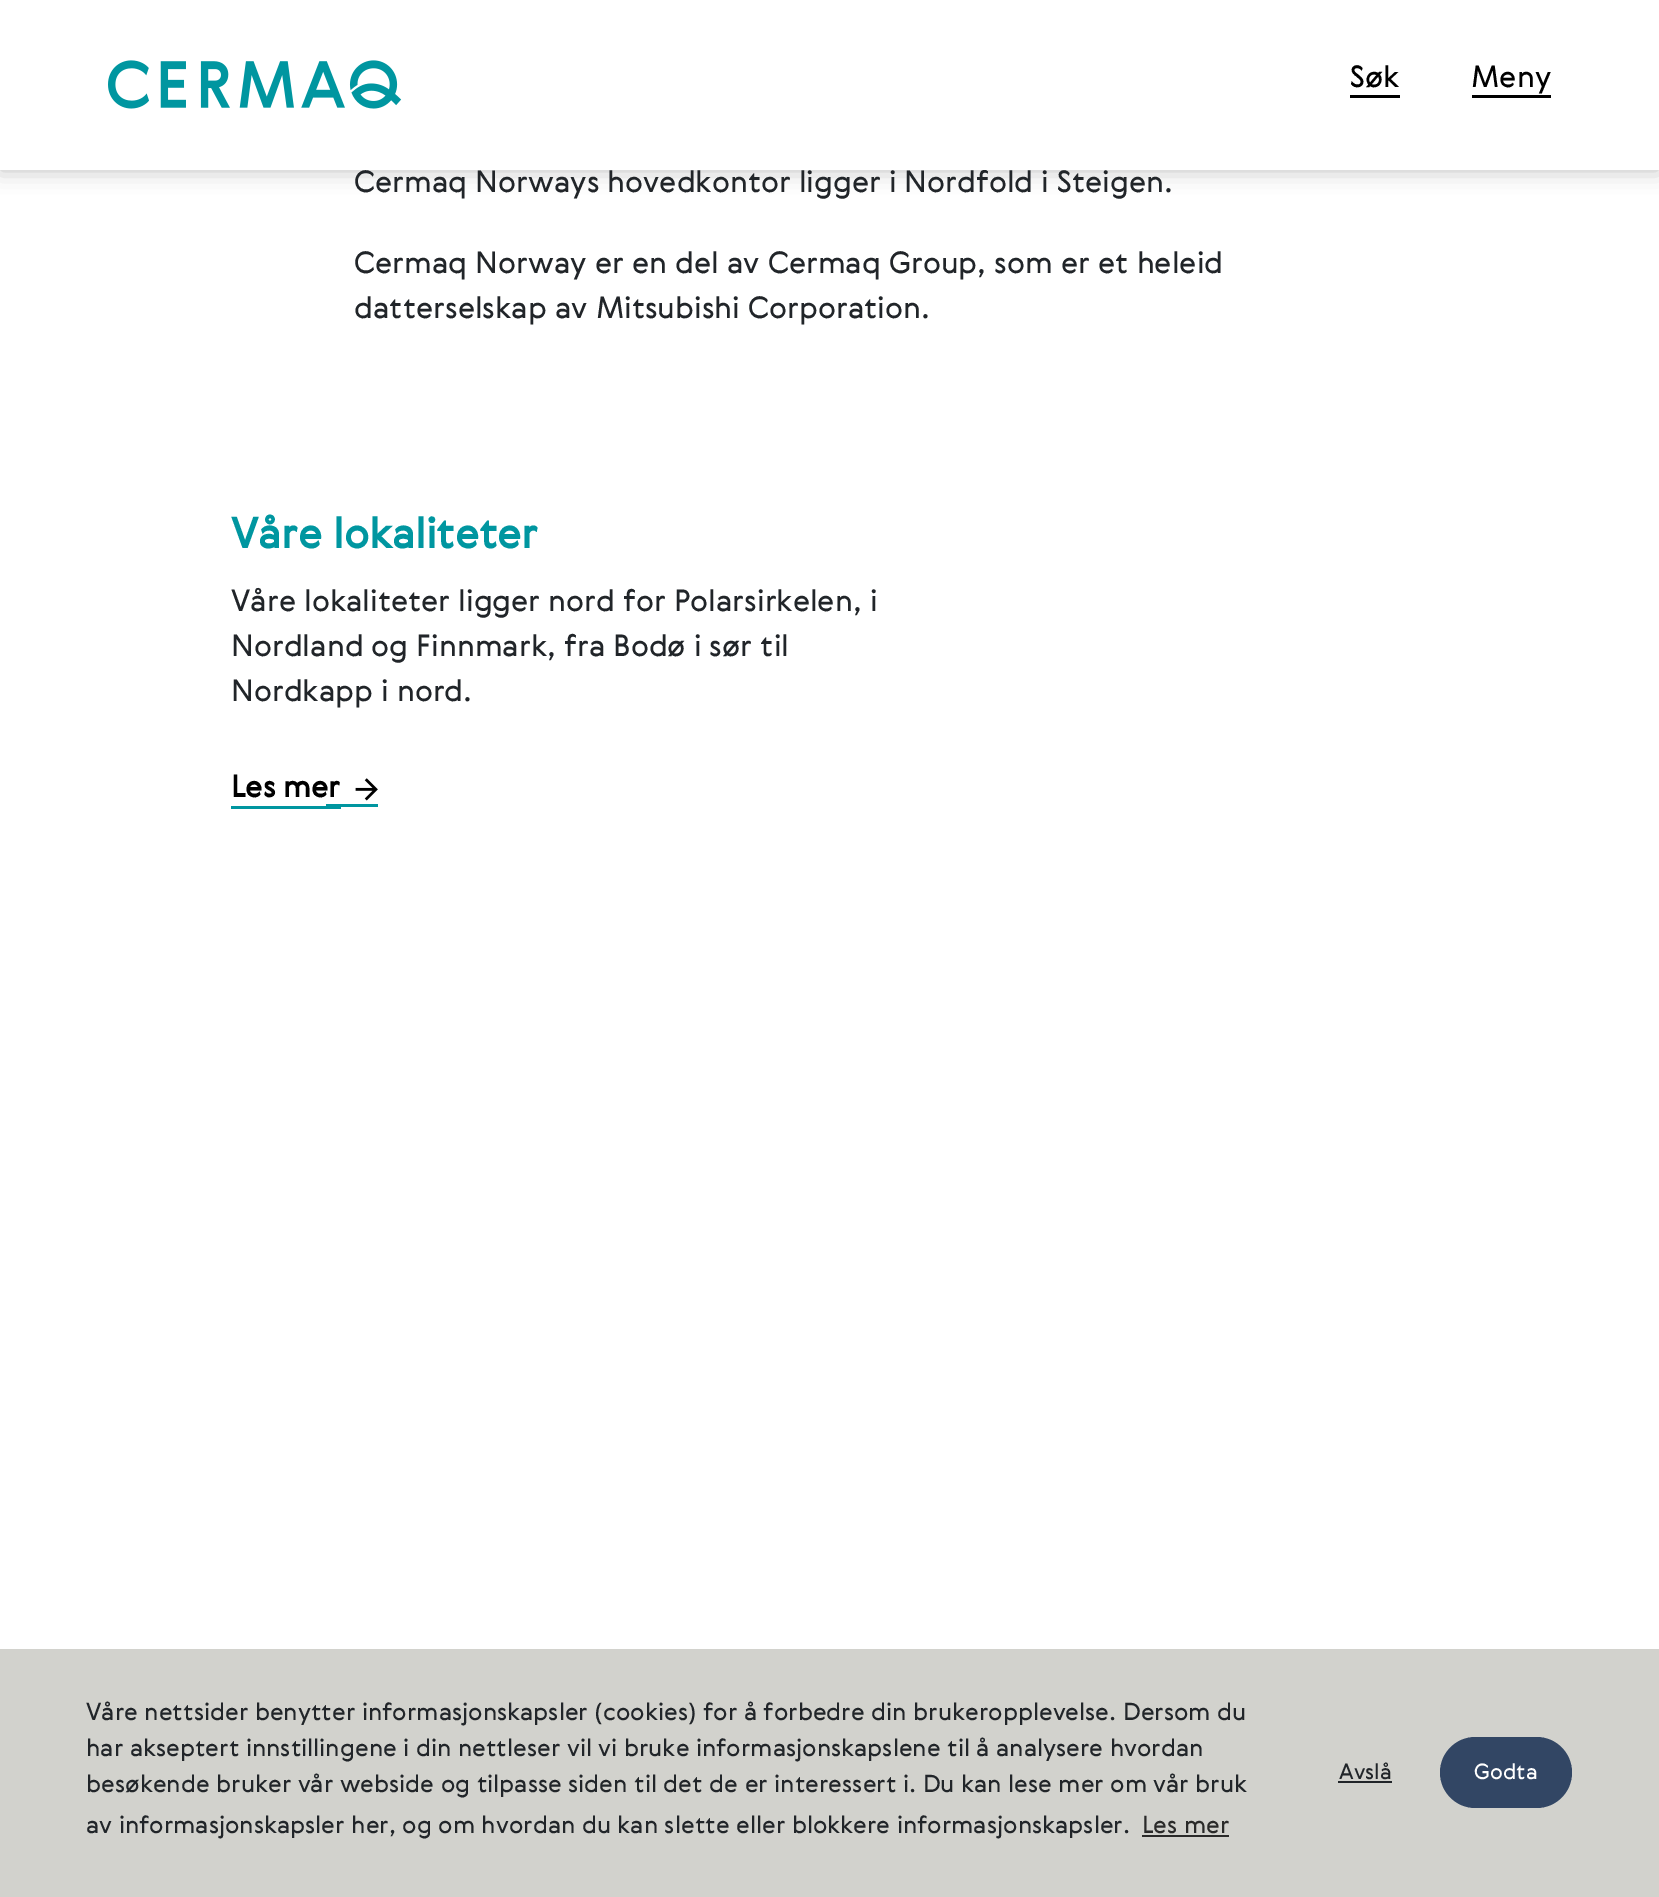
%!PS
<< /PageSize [1659 1897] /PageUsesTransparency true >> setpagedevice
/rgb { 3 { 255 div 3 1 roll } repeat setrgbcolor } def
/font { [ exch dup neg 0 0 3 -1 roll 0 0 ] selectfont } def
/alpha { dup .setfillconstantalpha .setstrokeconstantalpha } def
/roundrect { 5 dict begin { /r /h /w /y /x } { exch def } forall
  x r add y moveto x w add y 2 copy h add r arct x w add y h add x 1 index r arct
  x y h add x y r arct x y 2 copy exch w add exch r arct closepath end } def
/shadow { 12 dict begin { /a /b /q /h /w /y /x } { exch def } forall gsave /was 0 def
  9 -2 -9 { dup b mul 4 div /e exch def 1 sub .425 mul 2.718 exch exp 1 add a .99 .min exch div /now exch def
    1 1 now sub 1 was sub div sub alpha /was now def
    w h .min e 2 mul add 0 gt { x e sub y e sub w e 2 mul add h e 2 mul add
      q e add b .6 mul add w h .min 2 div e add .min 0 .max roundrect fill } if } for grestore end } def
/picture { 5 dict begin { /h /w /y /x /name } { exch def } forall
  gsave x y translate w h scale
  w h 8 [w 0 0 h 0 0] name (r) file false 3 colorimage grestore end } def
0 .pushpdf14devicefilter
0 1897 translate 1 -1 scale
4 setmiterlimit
255 255 255 rgb
0 0 1659 1897 rectfill
0 0 0 rgb
0 0 1659 170 0 11 0.25 shadow
0 150 160 rgb
231 806 110 3 rectfill
326 804 52 3 rectfill
(img/2.rgb) 355 778 23 23 picture
[
  [0 1649 1659 248 210 210 205]
  [1142 1835 87 2 42 42 41]
  [1338 1781 54 2 33 37 41]
] { aload pop rgb rectfill } forall
50 70 100 rgb
1440 1737 132 71 35.5 roundrect fill
/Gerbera-Regular 30 font
33 37 41 rgb
354 192 moveto (Cermaq Norways hovedkontor ligger i Nordfold i Steigen.) show
255 255 255 rgb
0 0 1659 170 rectfill
0 0 0 rgb
1471 87 moveto (Meny) show
1472 95 79 3 rectfill
1350 87 moveto (Søk) show
1350 95 50 3 rectfill
(img/1.rgb) 108 60 294 49 picture
33 37 41 rgb
354 273 moveto (Cermaq Norway er en del av Cermaq Group, som er et heleid) show
354 318 moveto (datterselskap av Mitsubishi Corporation.) show
/Gerbera-Bold 42 font
0 150 160 rgb
231 548 moveto (Våre lokaliteter) show
/Gerbera-Regular 30 font
33 37 41 rgb
[
  [(Våre lokaliteter ligger nord for Polarsirkelen, i) 231 611]
  [(Nordland og Finnmark, fra Bodø i sør til) 231 656]
  [(Nordkapp i nord.) 231 701]
] { aload pop moveto show } forall
/Gerbera-Bold 30 font
0 0 0 rgb
231 797 moveto (Les mer) show
/Gerbera-Regular 24 font
33 37 41 rgb
[
  [(Våre nettsider benytter informasjonskapsler \(cookies\) for å forbedre din brukeropplevelse. Dersom du) 86 1720]
  [(har akseptert innstillingene i din nettleser vil vi bruke informasjonskapslene til å analysere hvordan) 86 1756]
  [(besøkende bruker vår webside og tilpasse siden til det de er interessert i. Du kan lese mer om vår bruk) 86 1792]
  [(av informasjonskapsler her, og om hvordan du kan slette eller blokkere informasjonskapsler.) 86 1833]
] { aload pop moveto show } forall
42 42 41 rgb
1142 1833 moveto (Les mer) show
/Gerbera-Regular 21.5 font
33 37 41 rgb
1339 1779 moveto (Avslå) show
255 255 255 rgb
1474 1779 moveto (Godta) show
.poppdf14devicefilter showpage
